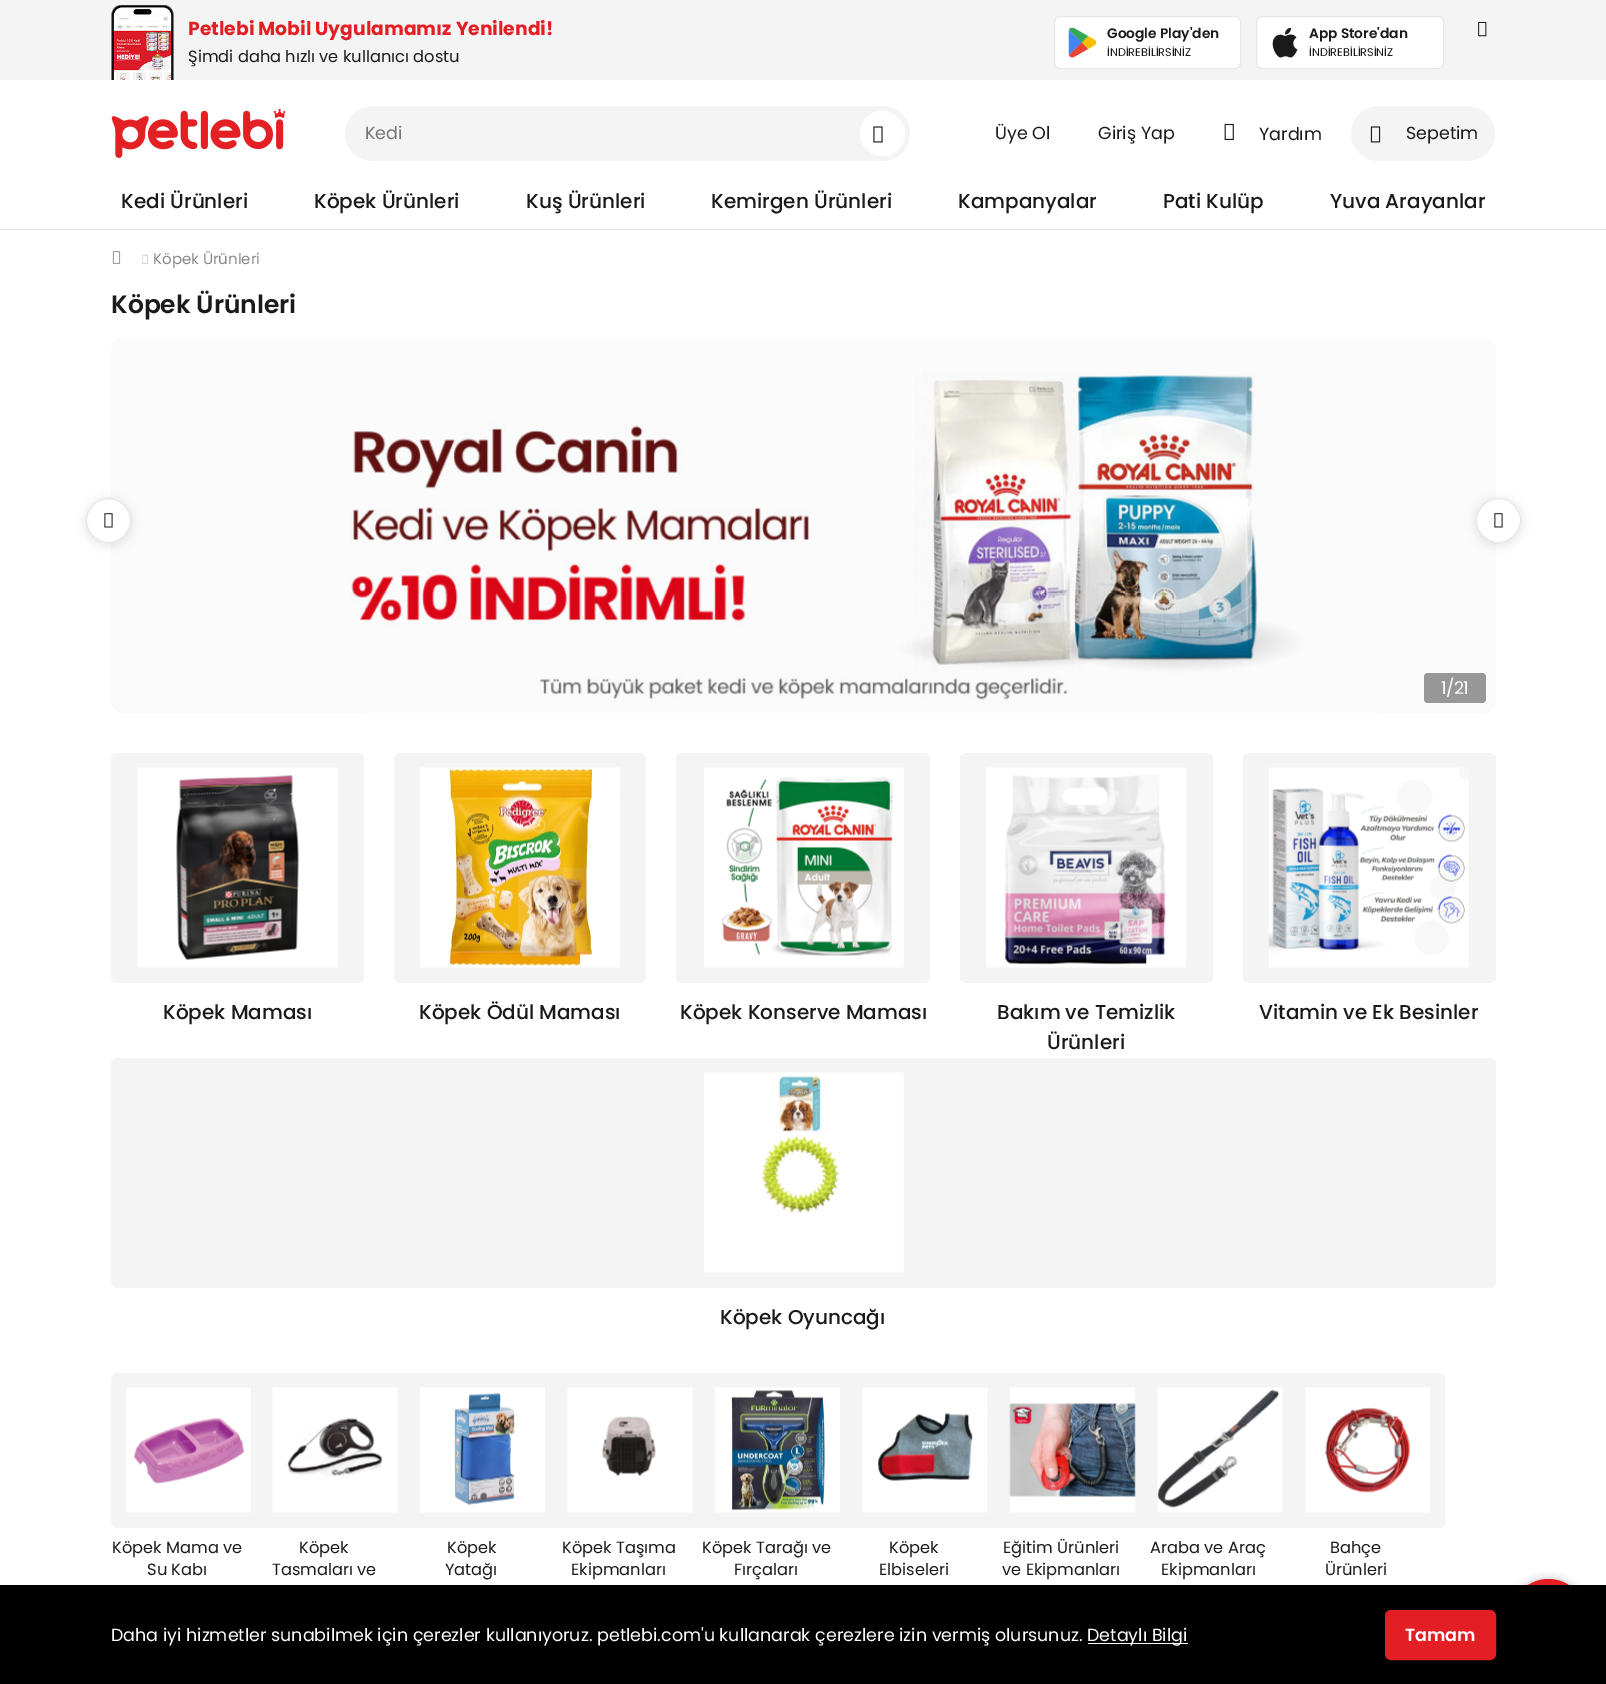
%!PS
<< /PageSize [1606 1684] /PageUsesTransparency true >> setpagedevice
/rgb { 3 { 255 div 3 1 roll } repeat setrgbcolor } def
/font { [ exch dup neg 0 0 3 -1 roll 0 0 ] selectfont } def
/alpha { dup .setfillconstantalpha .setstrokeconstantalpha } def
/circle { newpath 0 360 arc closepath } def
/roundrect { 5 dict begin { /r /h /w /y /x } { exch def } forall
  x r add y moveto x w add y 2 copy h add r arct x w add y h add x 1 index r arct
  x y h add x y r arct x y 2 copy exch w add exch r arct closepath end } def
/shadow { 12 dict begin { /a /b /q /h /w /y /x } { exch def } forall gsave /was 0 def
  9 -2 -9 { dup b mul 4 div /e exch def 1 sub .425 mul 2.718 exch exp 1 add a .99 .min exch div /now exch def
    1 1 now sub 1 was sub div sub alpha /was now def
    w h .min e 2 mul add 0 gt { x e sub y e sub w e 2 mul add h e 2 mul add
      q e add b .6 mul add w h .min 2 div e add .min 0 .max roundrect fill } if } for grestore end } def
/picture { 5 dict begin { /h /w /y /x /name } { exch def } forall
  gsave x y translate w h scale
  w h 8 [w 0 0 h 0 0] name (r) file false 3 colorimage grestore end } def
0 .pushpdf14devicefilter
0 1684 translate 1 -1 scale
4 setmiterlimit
255 255 255 rgb
0 0 1606 1684 rectfill
230 230 230 rgb
0 229 1606 1 rectfill
244 244 244 rgb
0 0 1606 80 rectfill
(img/1.rgb) 111 5 63 75 picture
255 255 255 rgb
1054.5 16.5 186 52 5.5 roundrect gsave fill grestore
232 232 232 rgb
stroke
(img/2.rgb) 1068 28 29 30 picture
255 255 255 rgb
1256.5 16.5 187 52 5.5 roundrect gsave fill grestore
232 232 232 rgb
stroke
(img/3.rgb) 1272 28 26 30 picture
(img/4.rgb) 1478 21 9 16 picture
(img/5.rgb) 111 109 174 49 picture
244 244 244 rgb
345 106 565 55 27.5 roundrect fill
255 255 255 rgb
882.5 133.5 22.5 circle fill
(img/6.rgb) 873 126 10 17 picture
(img/7.rgb) 1224 123 10 17 picture
244 244 244 rgb
1351 106 144 55 27.5 roundrect fill
(img/8.rgb) 1370 126 11 17 picture
(img/10.rgb) 142 254 6 10 picture
gsave
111 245 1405 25 rectclip
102 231 moveto 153 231 lineto 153 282 lineto 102 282 lineto closepath 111 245 moveto 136 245 lineto 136 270 lineto 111 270 lineto closepath eoclip newpath
255 255 255 rgb
115 244 25 25 0 4 1 shadow
grestore
(img/9.rgb) 112 251 9 13 picture
111 338 1385 375 13 roundrect fill
(img/12.rgb) 111 338 1385 375 picture
26 26 26 rgb
86 500 45 45 22.5 5 0.12 shadow
255 255 255 rgb
108.5 520.5 22 circle gsave fill grestore
230 230 230 rgb
stroke
(img/11.rgb) 104 513 9 15 picture
26 26 26 rgb
1476 500 45 45 22.5 5 0.12 shadow
255 255 255 rgb
1498.5 520.5 22 circle gsave fill grestore
230 230 230 rgb
stroke
(img/11.rgb) 1494 513 9 15 picture
151 151 151 rgb
1424 673 62 30 4 roundrect fill
244 244 244 rgb
111 753 253 230 6 roundrect fill
(img/13.rgb) 137 767 201 201 picture
394 753 252 230 6 roundrect fill
(img/14.rgb) 420 767 200 201 picture
676 753 254 230 6 roundrect fill
(img/15.rgb) 704 767 200 201 picture
960 753 253 230 6 roundrect fill
(img/16.rgb) 986 767 200 201 picture
1243 753 253 230 6 roundrect fill
(img/17.rgb) 1268 767 201 201 picture
111 1058 1385 230 6 roundrect fill
(img/18.rgb) 704 1072 200 201 picture
111 1373 155 155 6 roundrect fill
(img/19.rgb) 126 1387 125 126 picture
258 1373 155 155 6 roundrect fill
(img/20.rgb) 272 1387 126 126 picture
405 1373 155 155 6 roundrect fill
(img/21.rgb) 420 1387 125 126 picture
553 1373 155 155 6 roundrect fill
(img/22.rgb) 567 1387 126 126 picture
700 1373 155 155 6 roundrect fill
(img/23.rgb) 715 1387 125 126 picture
848 1373 155 155 6 roundrect fill
(img/24.rgb) 862 1387 126 126 picture
995 1373 155 155 6 roundrect fill
(img/25.rgb) 1009 1387 127 126 picture
1143 1373 155 155 6 roundrect fill
(img/26.rgb) 1157 1387 126 126 picture
1290 1373 155 155 6 roundrect fill
(img/27.rgb) 1305 1387 125 126 picture
26 26 26 rgb
1511 1581 75 75 37.5 5 0.4 shadow
228 30 35 rgb
1548.5 1616.5 37.5 circle fill
0 0 0 rgb
0 1585 1606 99 rectfill
255 255 255 rgb
1088 1643 100 1 rectfill
227 30 36 rgb
1386.5 1611.5 108 47 4.5 roundrect gsave fill grestore
3 setlinewidth
stroke
/Poppins-Bold 18.75 font
188 35 moveto (Petlebi Mobil Uygulamamız Yenilendi!) show
/Poppins-Regular 16.25 font
26 26 26 rgb
188 62 moveto (Şimdi daha hızlı ve kullanıcı dostu) show
/Poppins-SemiBold 13.75 font
1107 38 moveto (Google Play'den) show
/Poppins-Regular 11.25 font
1107 56 moveto (İNDİREBİLİRSİNİZ) show
/Poppins-SemiBold 13.75 font
1309 38 moveto (App Store'dan) show
/Poppins-Regular 11.25 font
1309 56 moveto (İNDİREBİLİRSİNİZ) show
/Poppins-Regular 17.5 font
117 117 117 rgb
365 139 moveto (Kedi) show
26 26 26 rgb
[
  [(Üye Ol) 995 139]
  [(Giriş Yap) 1098 139]
  [(Yardım) 1259 140]
  [(Sepetim) 1406 139]
] { aload pop moveto show } forall
/Poppins-Medium 20 font
[
  [(Kedi Ürünleri) 121 208]
  [(Köpek Ürünleri) 314 208]
  [(Kuş Ürünleri) 526 208]
  [(Kemirgen Ürünleri) 711 208]
  [(Kampanyalar) 958 208]
  [(Pati Kulüp) 1163 208]
  [(Yuva Arayanlar) 1330 208]
] { aload pop moveto show } forall
/Poppins-Regular 15 font
136 136 136 rgb
153 264 moveto (Köpek Ürünleri) show
/Poppins-SemiBold 25 font
26 26 26 rgb
111 313 moveto (Köpek Ürünleri) show
/Poppins-Regular 17.5 font
255 255 255 rgb
1441 694 moveto -0.5 0 (1/21) ashow
/Poppins-Medium 20 font
26 26 26 rgb
[
  [(Köpek Maması) 163 1019]
  [(Köpek Ödül Maması) 419 1019]
  [(Köpek Konserve Maması) 680 1019]
  [(Bakım ve Temizlik) 997 1019]
  [(Ürünleri) 1047 1049]
  [(Vitamin ve Ek Besinler) 1259 1019]
  [(Köpek Oyuncağı) 720 1324]
] { aload pop moveto show } forall
/Poppins-Regular 16.25 font
[
  [(Köpek Mama ve) 112 1553]
  [(Su Kabı) 147 1575]
  [(Köpek) 299 1553]
  [(Tasmaları ve) 272 1575]
  [(Köpek) 447 1553]
  [(Yatağı) 445 1575]
  [(Köpek Taşıma) 562 1553]
  [(Ekipmanları) 571 1575]
  [(Köpek Tarağı ve) 702 1553]
  [(Fırçaları) 734 1575]
  [(Köpek) 889 1553]
  [(Elbiseleri) 879 1575]
  [(Eğitim Ürünleri) 1003 1553]
  [(ve Ekipmanları) 1002 1575]
  [(Araba ve Araç) 1150 1553]
  [(Ekipmanları) 1161 1575]
  [(Bahçe) 1330 1553]
  [(Ürünleri) 1325 1575]
] { aload pop moveto show } forall
/Poppins-Regular 17.5 font
255 255 255 rgb
111 1641 moveto (Daha iyi hizmetler sunabilmek için çerezler kullanıyoruz. petlebi.com'u kullanarak çerezlere izin vermiş olursunuz.) show
1087 1641 moveto (Detaylı Bilgi) show
/Poppins-SemiBold 17.5 font
1405 1641 moveto (Tamam) show
.poppdf14devicefilter showpage
